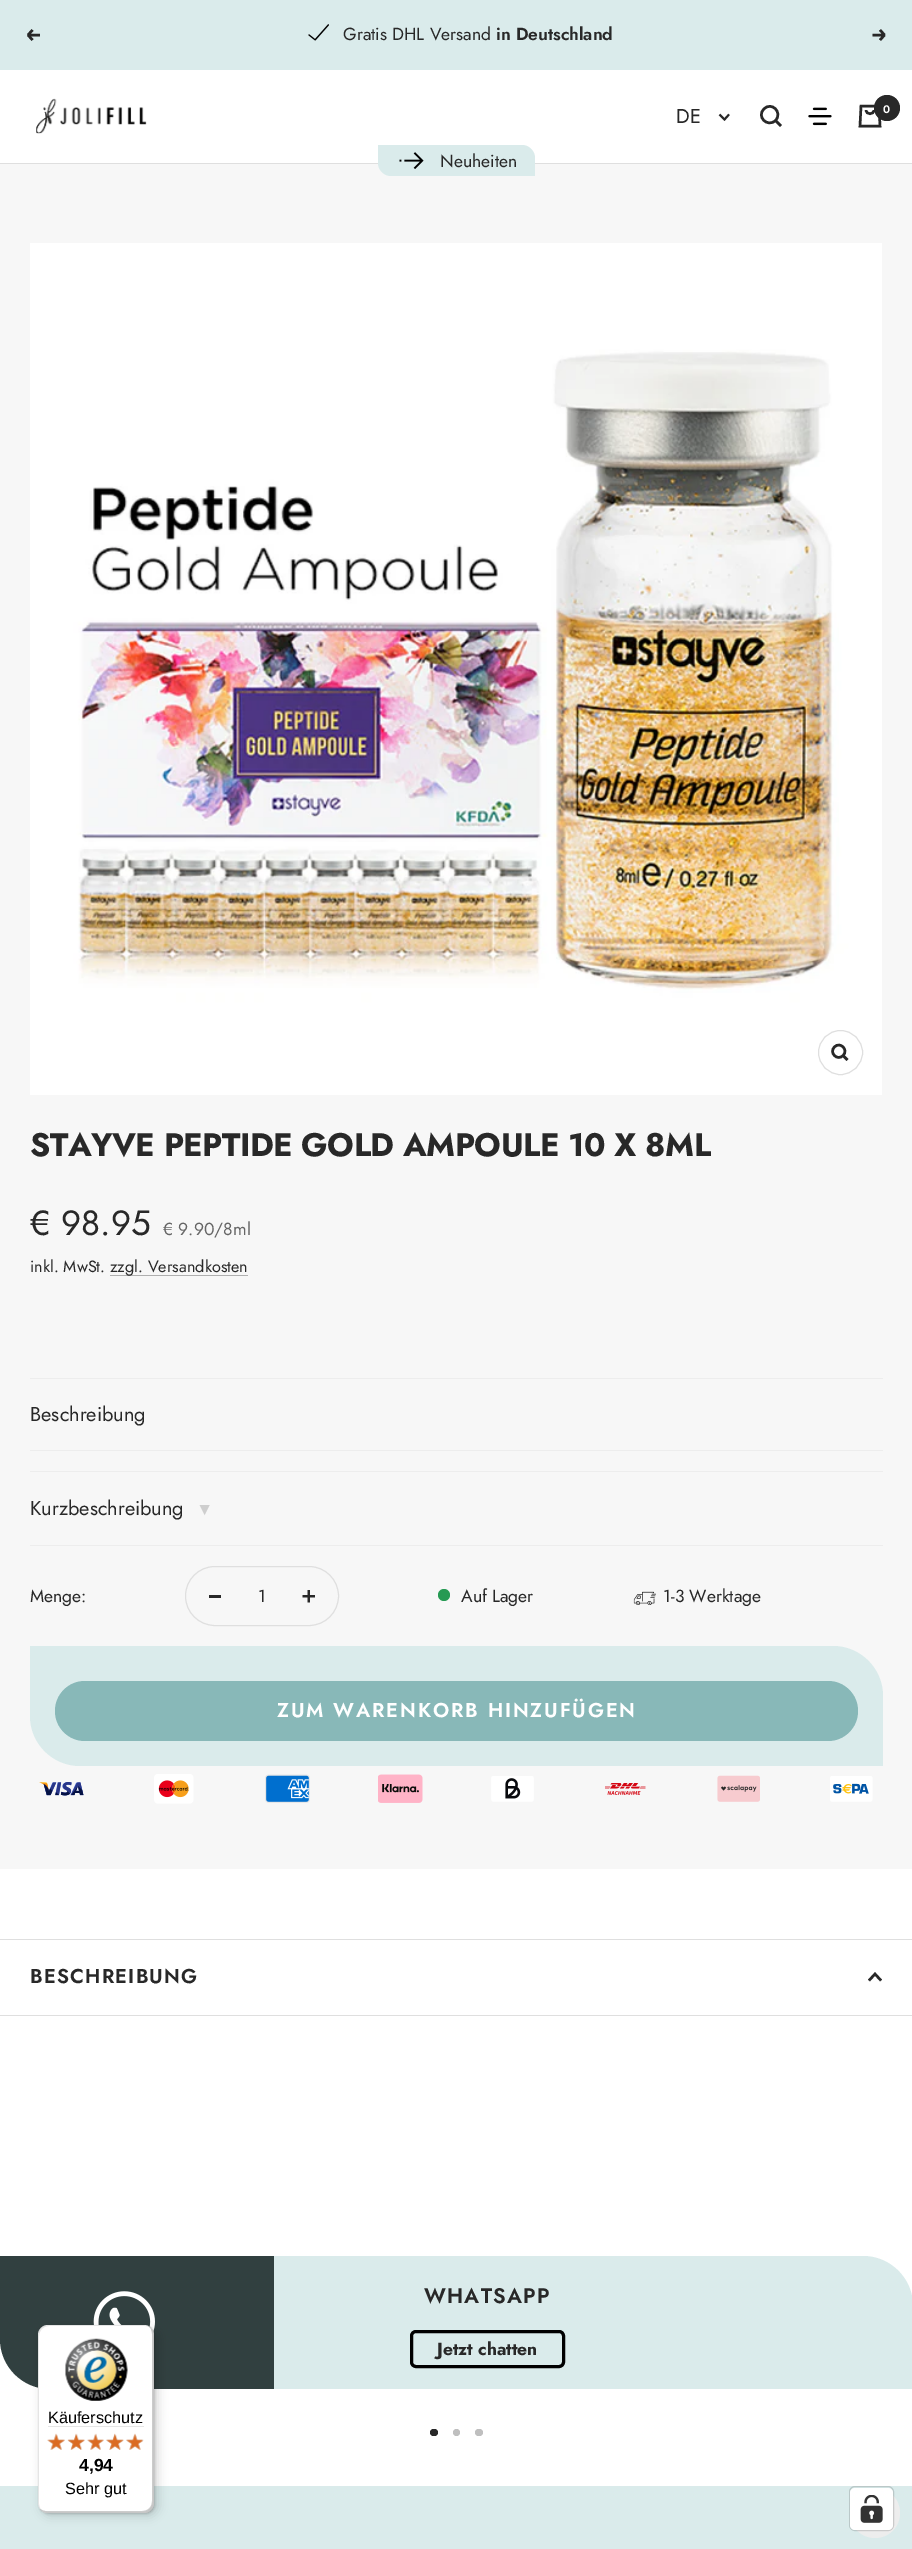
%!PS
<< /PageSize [912 2549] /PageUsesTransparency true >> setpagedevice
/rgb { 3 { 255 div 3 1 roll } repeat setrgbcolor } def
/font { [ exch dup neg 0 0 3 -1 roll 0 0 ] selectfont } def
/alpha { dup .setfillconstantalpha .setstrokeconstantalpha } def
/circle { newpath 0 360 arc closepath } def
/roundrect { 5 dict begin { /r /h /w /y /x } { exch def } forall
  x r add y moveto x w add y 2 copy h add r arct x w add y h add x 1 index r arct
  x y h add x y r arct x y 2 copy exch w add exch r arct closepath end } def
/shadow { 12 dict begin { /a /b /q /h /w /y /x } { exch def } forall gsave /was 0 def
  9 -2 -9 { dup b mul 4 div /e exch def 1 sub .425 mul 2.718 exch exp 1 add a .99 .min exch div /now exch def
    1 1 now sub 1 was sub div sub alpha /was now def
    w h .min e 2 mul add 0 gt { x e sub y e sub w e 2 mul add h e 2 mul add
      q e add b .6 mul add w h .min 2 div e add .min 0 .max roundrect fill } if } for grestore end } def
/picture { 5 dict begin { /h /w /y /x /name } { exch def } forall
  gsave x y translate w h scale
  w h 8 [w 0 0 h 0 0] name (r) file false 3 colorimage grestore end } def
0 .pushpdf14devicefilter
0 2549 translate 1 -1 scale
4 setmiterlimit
255 255 255 rgb
0 0 912 2549 rectfill
218 235 235 rgb
0 0 912 70 rectfill
40 40 40 rgb
2.5 setlinewidth
40 35 moveto 28 35 lineto 28 35 moveto 32.5 40 lineto 28 35 moveto 32.5 30 lineto stroke
(img/1.rgb) 308 24 21 17 picture
872.5 35 moveto 884.5 35 lineto 884.5 35 moveto 880 40 lineto 884.5 35 moveto 880 30 lineto stroke
223 223 223 rgb
0 162 moveto 0 164 lineto 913 164 lineto 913 71 lineto 912 71 lineto 912 162 lineto closepath fill
255 255 255 rgb
0 162 912 1 rectfill
(img/2.rgb) 36 98 111 36 picture
40 40 40 rgb
1.9 setlinewidth
719.5 114.5 moveto 724.5 119.5 lineto 729 114.5 lineto stroke
2.5 setlinewidth
775.5 120.5 moveto 783 112.5 771.5 101 764 109 curveto 756 116.5 767.5 128 775.5 120.5 curveto closepath 775.5 120.5 moveto 781 126 lineto stroke
(img/3.rgb) 808 107 24 19 picture
861 106 moveto 879 106 lineto 880 126 lineto 860 126 lineto closepath 866 110 moveto 866 115 874 115 874 110 curveto stroke
887 108 13 circle fill
247 247 247 rgb
0 164 912 1705 rectfill
218 235 235 rgb
378 145 moveto 522 145 lineto 529 145 535 151 535 158 curveto 535 176 lineto 391 176 lineto 384 176 378 170 378 163 curveto closepath fill
(img/4.rgb) 399 152 25 17 picture
(img/5.rgb) 30 243 852 852 picture
223 223 223 rgb
1 setlinewidth
840.5 1052.5 22 circle stroke
40 40 40 rgb
2.5 setlinewidth
843 1055.5 moveto 849 1050 840 1041 834.5 1047 curveto 828.5 1052.5 837.5 1061.5 843 1055.5 curveto closepath 843 1055.5 moveto 847.5 1060 lineto stroke
[
  [110 1275 138 1 175 175 175]
  [30 1378 853 1 237 237 237]
  [30 1450 853 1 237 237 237]
  [30 1471 853 1 237 237 237]
  [30 1545 853 1 237 237 237]
] { aload pop rgb rectfill } forall
223 223 223 rgb
1 setlinewidth
185.5 1566.5 153 59 29.5 roundrect stroke
40 40 40 rgb
209 1595 12 3 rectfill
(img/6.rgb) 302 1590 13 13 picture
38 154 83 rgb
444 1595 6 circle fill
(img/7.rgb) 633 1591 23 14 picture
218 235 235 rgb
30 1646 moveto 833 1646 lineto 860.5 1646 883 1668.5 883 1696 curveto 883 1766 lineto 80 1766 lineto 52.5 1766 30 1743.5 30 1716 curveto closepath fill
136 184 184 rgb
55 1681 803 60 30 roundrect fill
(img/8.rgb) 39 1782 45 14 picture
(img/9.rgb) 154 1774 40 30 picture
(img/10.rgb) 265 1774 45 29 picture
(img/11.rgb) 378 1774 45 29 picture
(img/12.rgb) 491 1776 43 26 picture
(img/13.rgb) 605 1783 41 12 picture
(img/14.rgb) 717 1775 43 27 picture
(img/15.rgb) 830 1776 43 26 picture
223 223 223 rgb
0 1939 912 1 rectfill
0 2015 912 1 rectfill
40 40 40 rgb
2.5 setlinewidth
881 1980.5 moveto 875 1974 lineto 869 1980.5 lineto stroke
49 64 64 rgb
0 2256 moveto 274 2256 lineto 274 2389 lineto 50 2389 lineto 22.5 2389 0 2366.5 0 2339 curveto closepath fill
218 235 235 rgb
274 2256 moveto 863 2256 lineto 890.5 2256 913 2278.5 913 2306 curveto 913 2389 lineto 274 2389 lineto closepath fill
(img/16.rgb) 93 2291 62 42 picture
0 0 0 rgb
3 setlinewidth
411.5 2331.5 152 35 4.5 roundrect stroke
40 40 40 rgb
430 2429 8 7 3.5 roundrect fill
191 191 191 rgb
456.5 2432.5 3.5 circle fill
475 2429 8 7 3.5 roundrect fill
218 235 235 rgb
0 2486 912 63 rectfill
0 0 0 rgb
41 2329 117 187 10 5 0.15 shadow
39 2326 116 188 10 1 0.15 shadow
255 255 255 rgb
38 2325 116 188 10 roundrect fill
0.1 alpha
0 0 0 rgb
49 2326 moveto 145 2326 lineto 148 2326 150 2327 152 2328 curveto 150 2326 147 2325 144 2325 curveto 48 2325 lineto 42 2325 38 2329 38 2335 curveto 38 2503 lineto 38 2506 39 2509 42 2511 curveto 40 2509 39 2506 39 2504 curveto 39 2336 lineto 39 2331 43 2326 49 2326 curveto closepath fill
0.2 alpha
40 2509 moveto 42 2511 45 2513 48 2513 curveto 144 2513 lineto 150 2513 154 2509 154 2503 curveto 154 2335 lineto 154 2331 152 2328 148 2326 curveto 151 2328 152 2331 152 2334 curveto 152 2501 lineto 152 2507 148 2511 142 2511 curveto 46 2511 lineto 44 2511 42 2510 40 2509 curveto closepath fill
50 50 50 rgb
40 2510 moveto 42 2512 45 2513 48 2513 curveto 144 2513 lineto 150 2513 154 2509 154 2503 curveto 154 2335 lineto 154 2332 153 2329 150 2327 curveto 152 2329 153 2332 153 2334 curveto 153 2502 lineto 153 2507 149 2512 143 2512 curveto 47 2512 lineto 44 2512 42 2511 40 2510 curveto closepath fill
0.3 alpha
255 255 255 rgb
40 2510 moveto 42 2512 45 2513 48 2513 curveto 144 2513 lineto 150 2513 154 2509 154 2503 curveto 154 2335 lineto 154 2332 153 2329 150 2327 curveto 152 2329 153 2332 153 2334 curveto 153 2502 lineto 153 2507 149 2512 143 2512 curveto 47 2512 lineto 44 2512 42 2511 40 2510 curveto closepath fill
1 alpha
(img/17.rgb) 65 2338 63 63 picture
229 229 229 rgb
48 2426 96 1 rectfill
(img/23.rgb) 47 2434 18 16 picture
(img/18.rgb) 47 2433 18 17 picture
(img/24.rgb) 68 2434 17 16 picture
(img/19.rgb) 67 2433 18 17 picture
(img/25.rgb) 87 2434 17 16 picture
(img/20.rgb) 87 2433 17 17 picture
(img/26.rgb) 106 2434 18 16 picture
(img/21.rgb) 106 2433 18 17 picture
(img/27.rgb) 126 2434 18 16 picture
(img/22.rgb) 126 2433 17 17 picture
237 237 237 rgb
875 2513 25 circle fill
0.15 alpha
0 0 0 rgb
1 setlinewidth
849.5 2486.5 44 44 5.5 roundrect stroke
1 alpha
255 255 255 rgb
850 2488 43 42 5 roundrect fill
(img/28.rgb) 860 2495 23 28 picture
/Jost-Regular 17.5 font
40 40 40 rgb
343 40 moveto (Gratis DHL Versand) show
/Jost-SemiBold 17.5 font
496 40 moveto (in Deutschland) show
/Jost-Regular 20 font
676 123 moveto (DE) show
/Jost-SemiBold 11 font
255 255 255 rgb
883 113 moveto (0) show
/Jost-Regular 17.5 font
40 40 40 rgb
440 167 moveto (Neuheiten) show
/Jost-Bold 32.5 font
30 1156 moveto -0.5 0 (STAYVE PEPTIDE GOLD AMPOULE 10 X 8ML) ashow
/Jost-Regular 35 font
30 1235 moveto (€ 98.95) show
/Jost-Regular 17.5 font
102 102 102 rgb
163 1235 moveto (€ 9.90/8ml) show
/Jost-Regular 16.25 font
40 40 40 rgb
30 1272 moveto (inkl. MwSt.) show
110 1272 moveto (zzgl. Versandkosten) show
/Jost-Regular 20 font
30 1421 moveto (Beschreibung) show
30 1515 moveto (Kurzbeschreibung) show
/LiberationSans-Regular 17.5 font
206 206 206 rgb
196 1515 moveto (▼) show
/Jost-Regular 17.5 font
40 40 40 rgb
[
  [(Menge:) 30 1602]
  [(1) 258 1602]
  [(Auf Lager) 461 1602]
  [(1-3 Werktage) 663 1602]
] { aload pop moveto show } forall
/Jost-SemiBold 20 font
255 255 255 rgb
277 1717 moveto 1.9 0 (ZUM WARENKORB HINZUFÜGEN) ashow
40 40 40 rgb
30 1983 moveto 1.25 0 (BESCHREIBUNG) ashow
/Jost-SemiBold 21 font
424 2303 moveto 1.25 0 (WHATSAPP) ashow
/Jost-Bold 17.5 font
437 2355 moveto (Jetzt chatten) show
/LiberationSans-Regular 16.25 font
0 0 0 rgb
48 2423 moveto (Käuferschutz) show
/LiberationSans-Bold 17.5 font
79 2471 moveto (4,94) show
/LiberationSans-Regular 16.25 font
65 2494 moveto (Sehr gut) show
.poppdf14devicefilter showpage
